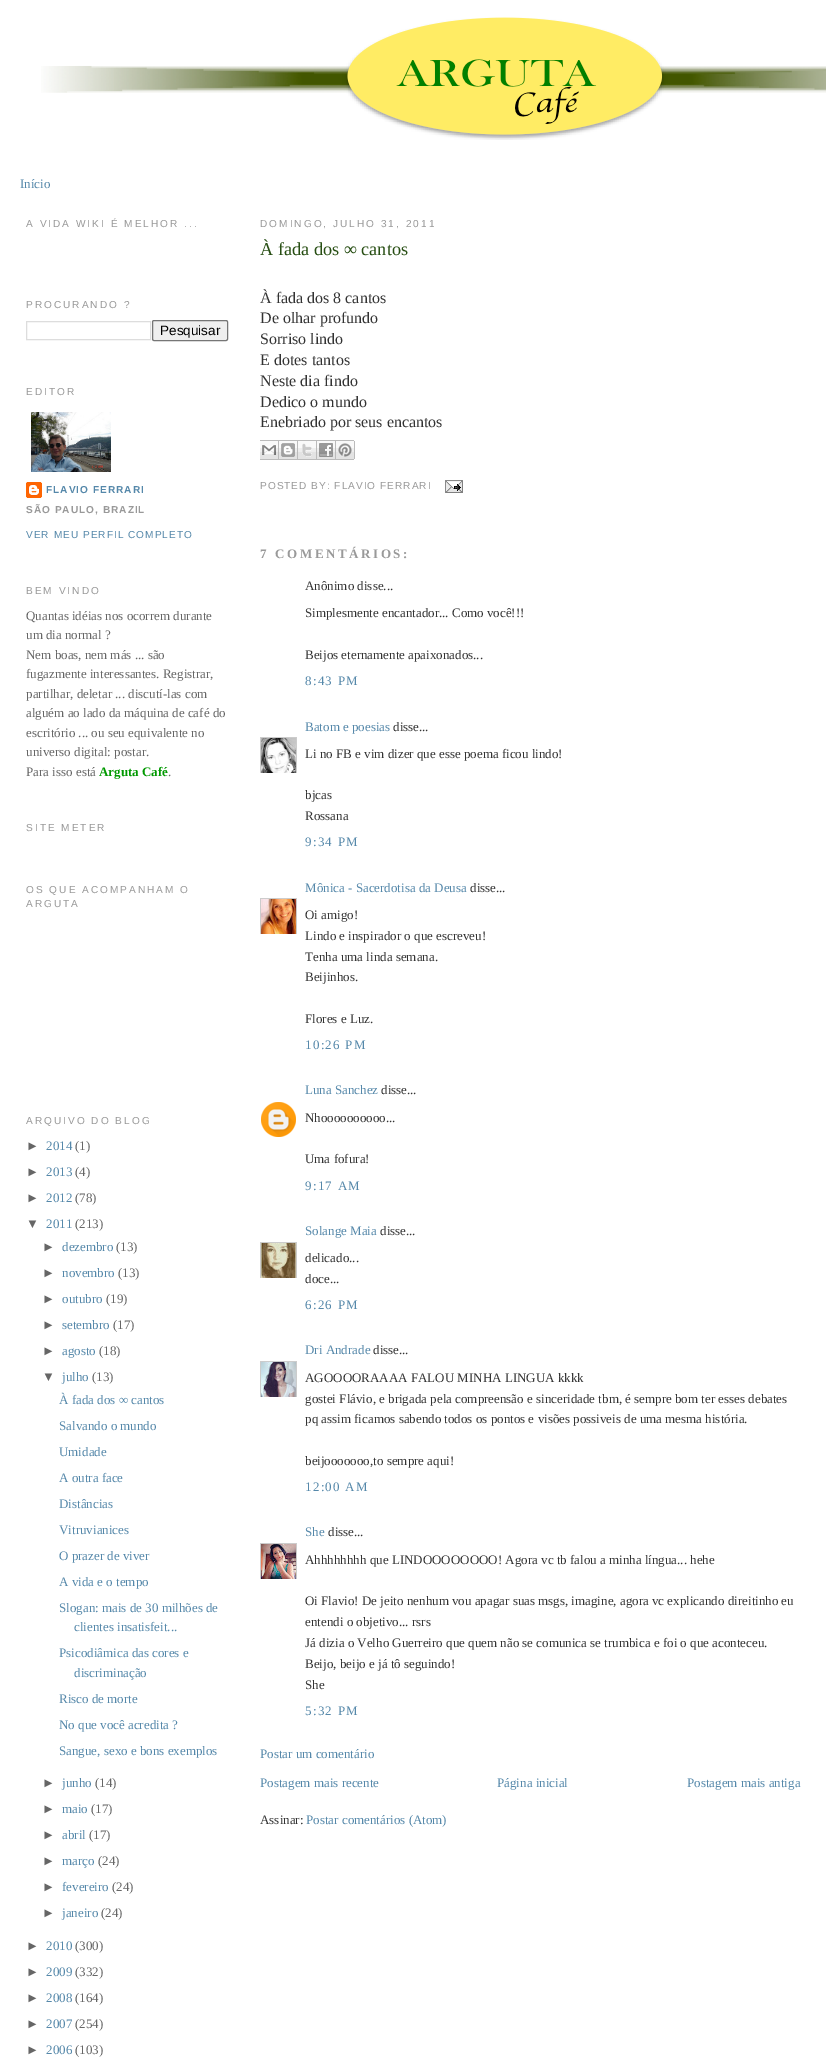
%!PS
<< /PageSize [826 2062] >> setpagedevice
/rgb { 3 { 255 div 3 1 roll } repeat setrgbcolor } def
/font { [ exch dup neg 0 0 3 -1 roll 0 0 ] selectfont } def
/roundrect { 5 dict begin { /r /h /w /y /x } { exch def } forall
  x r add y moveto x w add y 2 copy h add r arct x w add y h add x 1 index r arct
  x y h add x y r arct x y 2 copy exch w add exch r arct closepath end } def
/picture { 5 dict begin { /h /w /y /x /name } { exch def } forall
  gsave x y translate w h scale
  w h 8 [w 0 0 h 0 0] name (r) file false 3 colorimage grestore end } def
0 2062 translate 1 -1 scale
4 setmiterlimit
255 255 255 rgb
0 0 826 2062 rectfill
(img/1.rgb) 41 17 785 123 picture
221 221 221 rgb
26.5 321.5 124 18 rectstroke
239 239 239 rgb
152.5 320.5 75 20 1.5 roundrect gsave fill grestore
118 118 118 rgb
stroke
(img/2.rgb) 31 412 80 60 picture
(img/3.rgb) 26 482 16 16 picture
(img/4.rgb) 260 440 19 20 picture
(img/5.rgb) 279 440 19 20 picture
(img/6.rgb) 298 440 19 20 picture
(img/7.rgb) 317 440 19 20 picture
(img/8.rgb) 336 440 19 20 picture
(img/9.rgb) 445 480 18 13 picture
gsave
260 737 37 36 rectclip
204 204 204 rgb
260.5 737.5 36 36 rectstroke
grestore
(img/10.rgb) 261 738 35 35 picture
gsave
260 898 37 36 rectclip
204 204 204 rgb
260.5 898.5 36 36 rectstroke
grestore
(img/11.rgb) 261 899 35 35 picture
(img/12.rgb) 261 1102 35 35 picture
gsave
260 1242 37 36 rectclip
204 204 204 rgb
260.5 1242.5 36 36 rectstroke
grestore
(img/13.rgb) 261 1243 35 35 picture
gsave
260 1361 37 36 rectclip
204 204 204 rgb
260.5 1361.5 36 36 rectstroke
grestore
(img/14.rgb) 261 1362 35 35 picture
gsave
260 1543 37 36 rectclip
204 204 204 rgb
260.5 1543.5 36 36 rectstroke
grestore
(img/15.rgb) 261 1544 35 35 picture
/LiberationSerif-Regular 13 font
85 136 170 rgb
20 188 moveto (Início) show
/LiberationSans-Regular 10.1 font
153 153 153 rgb
26 227 moveto 2 0 (A VIDA WIKI É MELHOR ...) ashow
26 308 moveto 2 0 (PROCURANDO ?) ashow
/LiberationSans-Regular 13.5 font
0 0 0 rgb
160 335 moveto (Pesquisar) show
/LiberationSans-Regular 10.1 font
153 153 153 rgb
26 395 moveto 2 0 (EDITOR) ashow
/LiberationSans-Bold 10.1 font
85 136 170 rgb
46 493 moveto 1 0 (FLAVIO FERRARI) ashow
153 153 153 rgb
26 513 moveto 1 0 (SÃO PAULO, BRAZIL) ashow
/LiberationSans-Regular 10.1 font
85 136 170 rgb
26 538 moveto 1 0 (VER MEU PERFIL COMPLETO) ashow
153 153 153 rgb
26 594 moveto 2 0 (BEM VINDO) ashow
/LiberationSerif-Regular 13 font
102 102 102 rgb
[
  [(Quantas idéias nos ocorrem durante) 26 620]
  [(um dia normal ?) 26 639]
  [(Nem boas, nem más ... são) 26 659]
  [(fugazmente interessantes. Registrar,) 26 678]
  [(partilhar, deletar ... discutí-las com) 26 698]
  [(alguém ao lado da máquina de café do) 26 717]
  [(escritório ... ou seu equivalente no) 26 737]
  [(universo digital: postar.) 26 756]
  [(Para isso está) 26 776]
] { aload pop moveto show } forall
/LiberationSerif-Bold 13 font
0 153 0 rgb
99 776 moveto (Arguta Café) show
/LiberationSerif-Regular 13 font
102 102 102 rgb
168 776 moveto (.) show
/LiberationSans-Regular 10.1 font
153 153 153 rgb
26 831 moveto 2 0 (SITE METER) ashow
26 893 moveto 2 0 (OS QUE ACOMPANHAM O) ashow
26 907 moveto 2 0 (ARGUTA) ashow
26 1124 moveto 2 0 (ARQUIVO DO BLOG) ashow
/LiberationSans-Regular 13 font
102 102 102 rgb
26 1150 moveto (►) show
/LiberationSerif-Regular 13 font
85 136 170 rgb
46 1150 moveto (2014) show
102 102 102 rgb
75 1150 moveto (\(1\)) show
/LiberationSans-Regular 13 font
26 1176 moveto (►) show
/LiberationSerif-Regular 13 font
85 136 170 rgb
46 1176 moveto (2013) show
102 102 102 rgb
75 1176 moveto (\(4\)) show
/LiberationSans-Regular 13 font
26 1202 moveto (►) show
/LiberationSerif-Regular 13 font
85 136 170 rgb
46 1202 moveto (2012) show
102 102 102 rgb
75 1202 moveto (\(78\)) show
/LiberationSans-Regular 13 font
26 1228 moveto (▼) show
/LiberationSerif-Regular 13 font
85 136 170 rgb
46 1228 moveto (2011) show
102 102 102 rgb
75 1228 moveto (\(213\)) show
/LiberationSans-Regular 13 font
42 1251 moveto (►) show
/LiberationSerif-Regular 13 font
85 136 170 rgb
62 1251 moveto (dezembro) show
102 102 102 rgb
116 1251 moveto (\(13\)) show
/LiberationSans-Regular 13 font
42 1277 moveto (►) show
/LiberationSerif-Regular 13 font
85 136 170 rgb
62 1277 moveto (novembro) show
102 102 102 rgb
118 1277 moveto (\(13\)) show
/LiberationSans-Regular 13 font
42 1303 moveto (►) show
/LiberationSerif-Regular 13 font
85 136 170 rgb
62 1303 moveto (outubro) show
102 102 102 rgb
106 1303 moveto (\(19\)) show
/LiberationSans-Regular 13 font
42 1329 moveto (►) show
/LiberationSerif-Regular 13 font
85 136 170 rgb
62 1329 moveto (setembro) show
102 102 102 rgb
113 1329 moveto (\(17\)) show
/LiberationSans-Regular 13 font
42 1355 moveto (►) show
/LiberationSerif-Regular 13 font
85 136 170 rgb
62 1355 moveto (agosto) show
102 102 102 rgb
99 1355 moveto (\(18\)) show
/LiberationSans-Regular 13 font
42 1381 moveto (▼) show
/LiberationSerif-Regular 13 font
85 136 170 rgb
62 1381 moveto (julho) show
102 102 102 rgb
92 1381 moveto (\(13\)) show
85 136 170 rgb
[
  [(À fada dos ∞ cantos) 59 1404]
  [(Salvando o mundo) 59 1430]
  [(Umidade) 59 1456]
  [(A outra face) 59 1482]
  [(Distâncias) 59 1508]
  [(Vitruvianices) 59 1534]
  [(O prazer de viver) 59 1560]
  [(A vida e o tempo) 59 1586]
  [(Slogan: mais de 30 milhões de) 59 1612]
  [(clientes insatisfeit...) 74 1631]
  [(Psicodiâmica das cores e) 59 1657]
  [(discriminação) 74 1677]
  [(Risco de morte) 59 1703]
  [(No que você acredita ?) 59 1729]
  [(Sangue, sexo e bons exemplos) 59 1755]
] { aload pop moveto show } forall
/LiberationSans-Regular 13 font
102 102 102 rgb
42 1787 moveto (►) show
/LiberationSerif-Regular 13 font
85 136 170 rgb
62 1787 moveto (junho) show
102 102 102 rgb
95 1787 moveto (\(14\)) show
/LiberationSans-Regular 13 font
42 1813 moveto (►) show
/LiberationSerif-Regular 13 font
85 136 170 rgb
62 1813 moveto (maio) show
102 102 102 rgb
91 1813 moveto (\(17\)) show
/LiberationSans-Regular 13 font
42 1839 moveto (►) show
/LiberationSerif-Regular 13 font
85 136 170 rgb
62 1839 moveto (abril) show
102 102 102 rgb
89 1839 moveto (\(17\)) show
/LiberationSans-Regular 13 font
42 1865 moveto (►) show
/LiberationSerif-Regular 13 font
85 136 170 rgb
62 1865 moveto (março) show
102 102 102 rgb
98 1865 moveto (\(24\)) show
/LiberationSans-Regular 13 font
42 1891 moveto (►) show
/LiberationSerif-Regular 13 font
85 136 170 rgb
62 1891 moveto (fevereiro) show
102 102 102 rgb
112 1891 moveto (\(24\)) show
/LiberationSans-Regular 13 font
42 1917 moveto (►) show
/LiberationSerif-Regular 13 font
85 136 170 rgb
62 1917 moveto (janeiro) show
102 102 102 rgb
101 1917 moveto (\(24\)) show
/LiberationSans-Regular 13 font
26 1950 moveto (►) show
/LiberationSerif-Regular 13 font
85 136 170 rgb
46 1950 moveto (2010) show
102 102 102 rgb
75 1950 moveto (\(300\)) show
/LiberationSans-Regular 13 font
26 1976 moveto (►) show
/LiberationSerif-Regular 13 font
85 136 170 rgb
46 1976 moveto (2009) show
102 102 102 rgb
75 1976 moveto (\(332\)) show
/LiberationSans-Regular 13 font
26 2002 moveto (►) show
/LiberationSerif-Regular 13 font
85 136 170 rgb
46 2002 moveto (2008) show
102 102 102 rgb
75 2002 moveto (\(164\)) show
/LiberationSans-Regular 13 font
26 2028 moveto (►) show
/LiberationSerif-Regular 13 font
85 136 170 rgb
46 2028 moveto (2007) show
102 102 102 rgb
75 2028 moveto (\(254\)) show
/LiberationSans-Regular 13 font
26 2054 moveto (►) show
/LiberationSerif-Regular 13 font
85 136 170 rgb
46 2054 moveto (2006) show
102 102 102 rgb
75 2054 moveto (\(103\)) show
/LiberationSans-Regular 10.1 font
153 153 153 rgb
260 227 moveto 2 0 (DOMINGO, JULHO 31, 2011) ashow
/LiberationSerif-Regular 18.25 font
39 78 19 rgb
260 255 moveto (À fada dos ∞ cantos) show
/LiberationSerif-Regular 16 font
51 51 51 rgb
[
  [(À fada dos 8 cantos) 260 303]
  [(De olhar profundo) 260 323]
  [(Sorriso lindo) 260 344]
  [(E dotes tantos) 260 365]
  [(Neste dia findo) 260 386]
  [(Dedico o mundo) 260 407]
  [(Enebriado por seus encantos) 260 427]
] { aload pop moveto show } forall
/LiberationSans-Regular 10.1 font
153 153 153 rgb
260 489 moveto 1 0 (POSTED BY: FLAVIO FERRARI) ashow
/LiberationSerif-Bold 13 font
260 558 moveto 2.6 0 (7 COMENTÁRIOS:) ashow
/LiberationSerif-Regular 13 font
51 51 51 rgb
[
  [(Anônimo disse...) 305 590]
  [(Simplesmente encantador... Como você!!!) 305 617]
  [(Beijos eternamente apaixonados...) 305 659]
] { aload pop moveto show } forall
85 136 170 rgb
305 685 moveto 1.25 0 (8:43 PM) ashow
305 731 moveto (Batom e poesias) show
51 51 51 rgb
[
  [(disse...) 393 731]
  [(Li no FB e vim dizer que esse poema ficou lindo!) 305 758]
  [(bjcas) 305 799]
  [(Rossana) 305 820]
] { aload pop moveto show } forall
85 136 170 rgb
305 846 moveto 1.25 0 (9:34 PM) ashow
305 892 moveto (Mônica - Sacerdotisa da Deusa) show
51 51 51 rgb
[
  [(disse...) 470 892]
  [(Oi amigo!) 305 919]
  [(Lindo e inspirador o que escreveu!) 305 940]
  [(Tenha uma linda semana.) 305 961]
  [(Beijinhos.) 305 981]
  [(Flores e Luz.) 305 1023]
] { aload pop moveto show } forall
85 136 170 rgb
305 1049 moveto 1.25 0 (10:26 PM) ashow
305 1094 moveto (Luna Sanchez) show
51 51 51 rgb
[
  [(disse...) 381 1094]
  [(Nhoooooooooo...) 305 1122]
  [(Uma fofura!) 305 1163]
] { aload pop moveto show } forall
85 136 170 rgb
305 1190 moveto 1.25 0 (9:17 AM) ashow
305 1235 moveto (Solange Maia) show
51 51 51 rgb
[
  [(disse...) 380 1235]
  [(delicado...) 305 1262]
  [(doce...) 305 1283]
] { aload pop moveto show } forall
85 136 170 rgb
305 1309 moveto 1.25 0 (6:26 PM) ashow
305 1354 moveto (Dri Andrade) show
51 51 51 rgb
[
  [(disse...) 373 1354]
  [(AGOOOORAAAA FALOU MINHA LINGUA kkkk) 305 1382]
  [(gostei Flávio, e brigada pela compreensão e sinceridade tbm, é sempre bom ter esses debates) 305 1403]
  [(pq assim ficamos sabendo todos os pontos e visões possiveis de uma mesma história.) 305 1423]
  [(beijooooooo,to sempre aqui!) 305 1465]
] { aload pop moveto show } forall
85 136 170 rgb
305 1491 moveto 1.25 0 (12:00 AM) ashow
305 1536 moveto (She) show
51 51 51 rgb
[
  [(disse...) 328 1536]
  [(Ahhhhhhhh que LINDOOOOOOOO! Agora vc tb falou a minha língua... hehe) 305 1564]
  [(Oi Flavio! De jeito nenhum vou apagar suas msgs, imagine, agora vc explicando direitinho eu) 305 1605]
  [(entendi o objetivo... rsrs) 305 1626]
  [(Já dizia o Velho Guerreiro que quem não se comunica se trumbica e foi o que aconteceu.) 305 1647]
  [(Beijo, beijo e já tô seguindo!) 305 1668]
  [(She) 305 1689]
] { aload pop moveto show } forall
85 136 170 rgb
305 1715 moveto 1.25 0 (5:32 PM) ashow
[
  [(Postar um comentário) 260 1758]
  [(Postagem mais recente) 260 1787]
  [(Página inicial) 497 1787]
  [(Postagem mais antiga) 687 1787]
] { aload pop moveto show } forall
51 51 51 rgb
260 1824 moveto (Assinar:) show
85 136 170 rgb
306 1824 moveto (Postar comentários \(Atom\)) show
showpage
